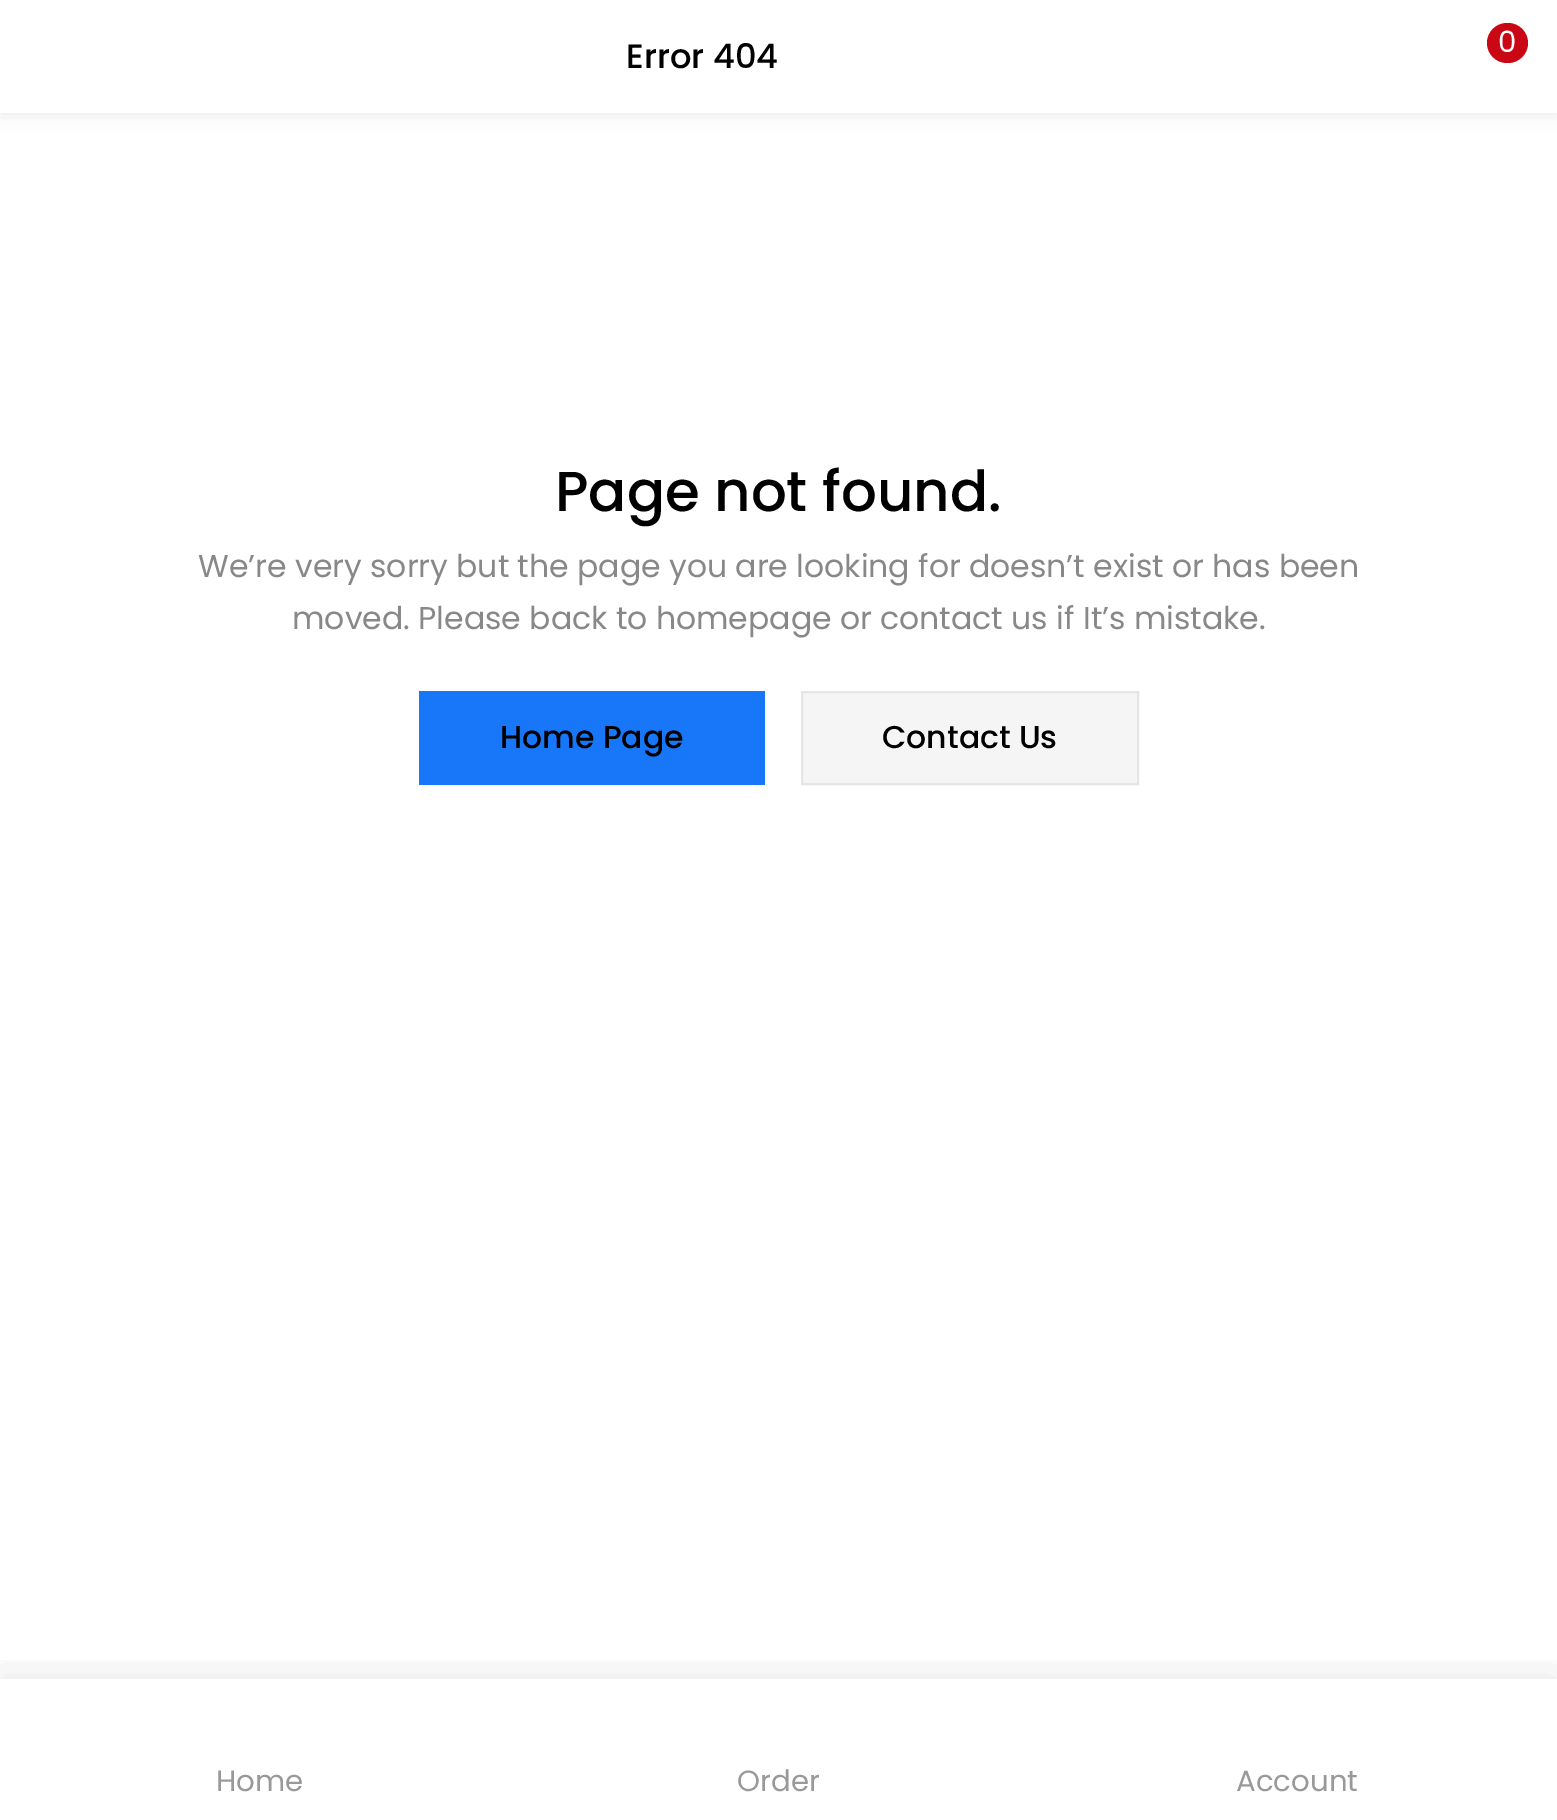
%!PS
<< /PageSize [1557 1820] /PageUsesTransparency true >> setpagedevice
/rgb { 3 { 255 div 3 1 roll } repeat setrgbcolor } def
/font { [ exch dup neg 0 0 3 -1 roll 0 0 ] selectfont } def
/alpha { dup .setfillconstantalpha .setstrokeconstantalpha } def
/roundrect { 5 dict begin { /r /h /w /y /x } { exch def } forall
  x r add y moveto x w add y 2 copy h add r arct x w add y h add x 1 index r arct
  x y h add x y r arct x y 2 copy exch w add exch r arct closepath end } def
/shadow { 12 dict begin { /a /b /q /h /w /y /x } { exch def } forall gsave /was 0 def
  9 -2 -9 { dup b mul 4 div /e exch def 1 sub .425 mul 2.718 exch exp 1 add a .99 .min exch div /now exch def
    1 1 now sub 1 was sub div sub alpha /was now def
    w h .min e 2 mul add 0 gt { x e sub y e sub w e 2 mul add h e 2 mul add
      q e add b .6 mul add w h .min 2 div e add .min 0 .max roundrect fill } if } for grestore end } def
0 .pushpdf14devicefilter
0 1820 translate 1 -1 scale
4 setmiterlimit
255 255 255 rgb
0 0 1557 1820 rectfill
0 0 0 rgb
0 0 1557 113 0 9 0.1 shadow
255 255 255 rgb
0 0 1557 113 rectfill
202 8 21 rgb
1487 23 41 40 20 roundrect fill
24 118 249 rgb
419 691 346 94 rectfill
245 245 245 rgb
802 692 moveto 1138 692 lineto 1138 784 lineto 802 784 lineto closepath gsave fill grestore
229 229 229 rgb
2 setlinewidth
stroke
gsave
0 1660 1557 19 rectclip
0 0 0 rgb
0 1679 1557 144 0 22.5 0.1 shadow
grestore
/Poppins-Medium 33.75 font
0 0 0 rgb
626 68 moveto (Error 404) show
/Poppins-Regular 29.25 font
255 255 255 rgb
1498 52 moveto (0) show
/Poppins-Medium 56.25 font
0 0 0 rgb
555 511 moveto (Page not found.) show
/Poppins-Regular 31.5 font
136 136 136 rgb
198 577 moveto (We’re very sorry but the page you are looking for doesn’t exist or has been) show
292 629 moveto (moved. Please back to homepage or contact us if It’s mistake.) show
/Poppins-Medium 31.5 font
0 0 0 rgb
500 748 moveto (Home Page) show
882 748 moveto (Contact Us) show
/Poppins-Regular 29.25 font
153 153 153 rgb
[
  [(Home) 216 1791]
  [(Order) 737 1791]
  [(Account) 1236 1791]
] { aload pop moveto show } forall
.poppdf14devicefilter showpage
